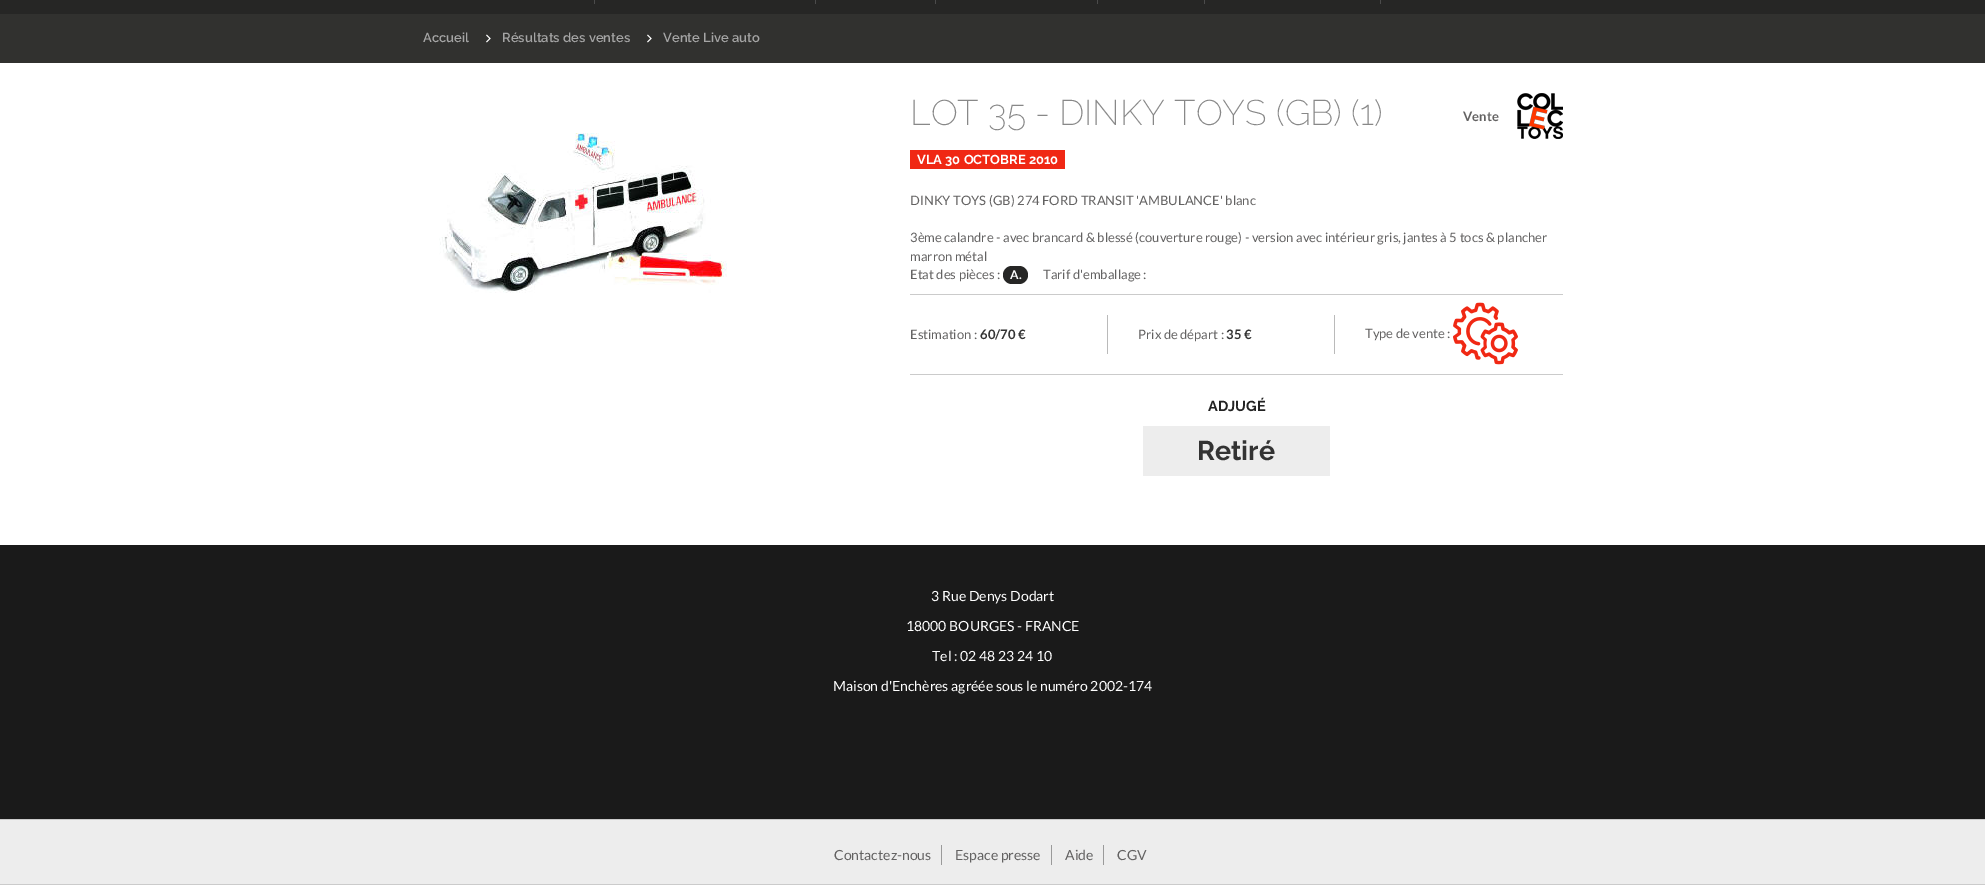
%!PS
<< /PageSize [1985 885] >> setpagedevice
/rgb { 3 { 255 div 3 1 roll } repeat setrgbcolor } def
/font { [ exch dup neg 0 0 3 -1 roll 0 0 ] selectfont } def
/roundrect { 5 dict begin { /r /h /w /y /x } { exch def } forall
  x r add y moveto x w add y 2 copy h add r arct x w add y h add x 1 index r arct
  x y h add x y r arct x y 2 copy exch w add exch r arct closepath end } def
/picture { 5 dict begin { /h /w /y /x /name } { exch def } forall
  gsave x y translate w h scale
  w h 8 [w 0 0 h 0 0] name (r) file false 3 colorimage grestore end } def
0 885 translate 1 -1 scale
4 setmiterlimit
255 255 255 rgb
0 0 1985 885 rectfill
[
  [0 0 1985 14 38 38 37]
  [594 0 1 4 75 75 75]
  [815 0 1 4 75 75 75]
  [935 0 1 4 75 75 75]
  [1097 0 1 4 75 75 75]
  [1204 0 1 4 75 75 75]
  [1380 0 1 4 75 75 75]
  [0 14 1985 49 49 49 47]
] { aload pop rgb rectfill } forall
255 255 255 rgb
486.5 35 moveto 490 38.5 lineto 486.5 42 lineto stroke
647.5 35 moveto 651 38.5 lineto 647.5 42 lineto stroke
(img/1.rgb) 439 133 288 160 picture
240 40 20 rgb
910 150 155 19 rectfill
(img/2.rgb) 1517 93 46 46 picture
38 38 37 rgb
1003 266 25 18 9 roundrect fill
[
  [910 294 653 1 203 203 203]
  [1107 315 1 39 186 186 186]
  [1334 315 1 39 186 186 186]
] { aload pop rgb rectfill } forall
(img/3.rgb) 1453 302 65 63 picture
203 203 203 rgb
910 374 653 1 rectfill
237 237 237 rgb
1143 426 187 50 rectfill
(img/4.rgb) 0 545 1985 340 picture
[
  [941 845 1 20 154 154 154]
  [1051 845 1 20 154 154 154]
  [1103 845 1 20 154 154 154]
] { aload pop rgb rectfill } forall
/Raleway-SemiBold 13 font
165 165 165 rgb
[
  [(Accueil) 423 42]
  [(Résultats des ventes) 502 42]
  [(Vente Live auto) 663 42]
] { aload pop moveto show } forall
/Raleway-ExtraLight 35.5 font
136 136 136 rgb
910 125 moveto (LOT 35 - DINKY TOYS \(GB\) \(1\)) show
/Raleway-Bold 13 font
255 255 255 rgb
917 164 moveto (VLA 30 OCTOBRE 2010) show
/Lato-Bold 13 font
99 98 98 rgb
1463 121 moveto (Vente) show
/Lato-Regular 13 font
[
  [(DINKY TOYS \(GB\) 274 FORD TRANSIT 'AMBULANCE' blanc) 910 205]
  [(3ème calandre - avec brancard & blessé \(couverture rouge\) - version avec intérieur gris, jantes à 5 tocs & plancher) 910 242]
  [(marron métal) 910 261]
  [(Etat des pièces :) 910 279]
] { aload pop moveto show } forall
/Lato-Bold 12 font
255 255 255 rgb
1010 279 moveto (A.) show
/Lato-Regular 13 font
99 98 98 rgb
1043 279 moveto (Tarif d'emballage :) show
910 339 moveto (Estimation :) show
/Lato-Bold 13 font
51 51 51 rgb
980 339 moveto (60/70 €) show
/Lato-Regular 13 font
99 98 98 rgb
1138 339 moveto (Prix de départ :) show
/Lato-Bold 13 font
51 51 51 rgb
1226 339 moveto (35 €) show
/Lato-Regular 13 font
99 98 98 rgb
1365 338 moveto (Type de vente :) show
/Raleway-Bold 14.5 font
35 35 35 rgb
1208 411 moveto (ADJUGÉ) show
/Raleway-Bold 27 font
51 51 51 rgb
1197 460 moveto (Retiré) show
/Lato-Regular 14 font
255 255 255 rgb
[
  [(3 Rue Denys Dodart) 931 601]
  [(18000 BOURGES - FRANCE) 906 631]
  [(Tel : 02 48 23 24 10) 932 661]
  [(Maison d'Enchères agréée sous le numéro 2002-174) 833 691]
] { aload pop moveto show } forall
99 98 98 rgb
[
  [(Contactez-nous) 834 860]
  [(Espace presse) 955 860]
  [(Aide) 1065 860]
  [(CGV) 1117 860]
] { aload pop moveto show } forall
showpage
